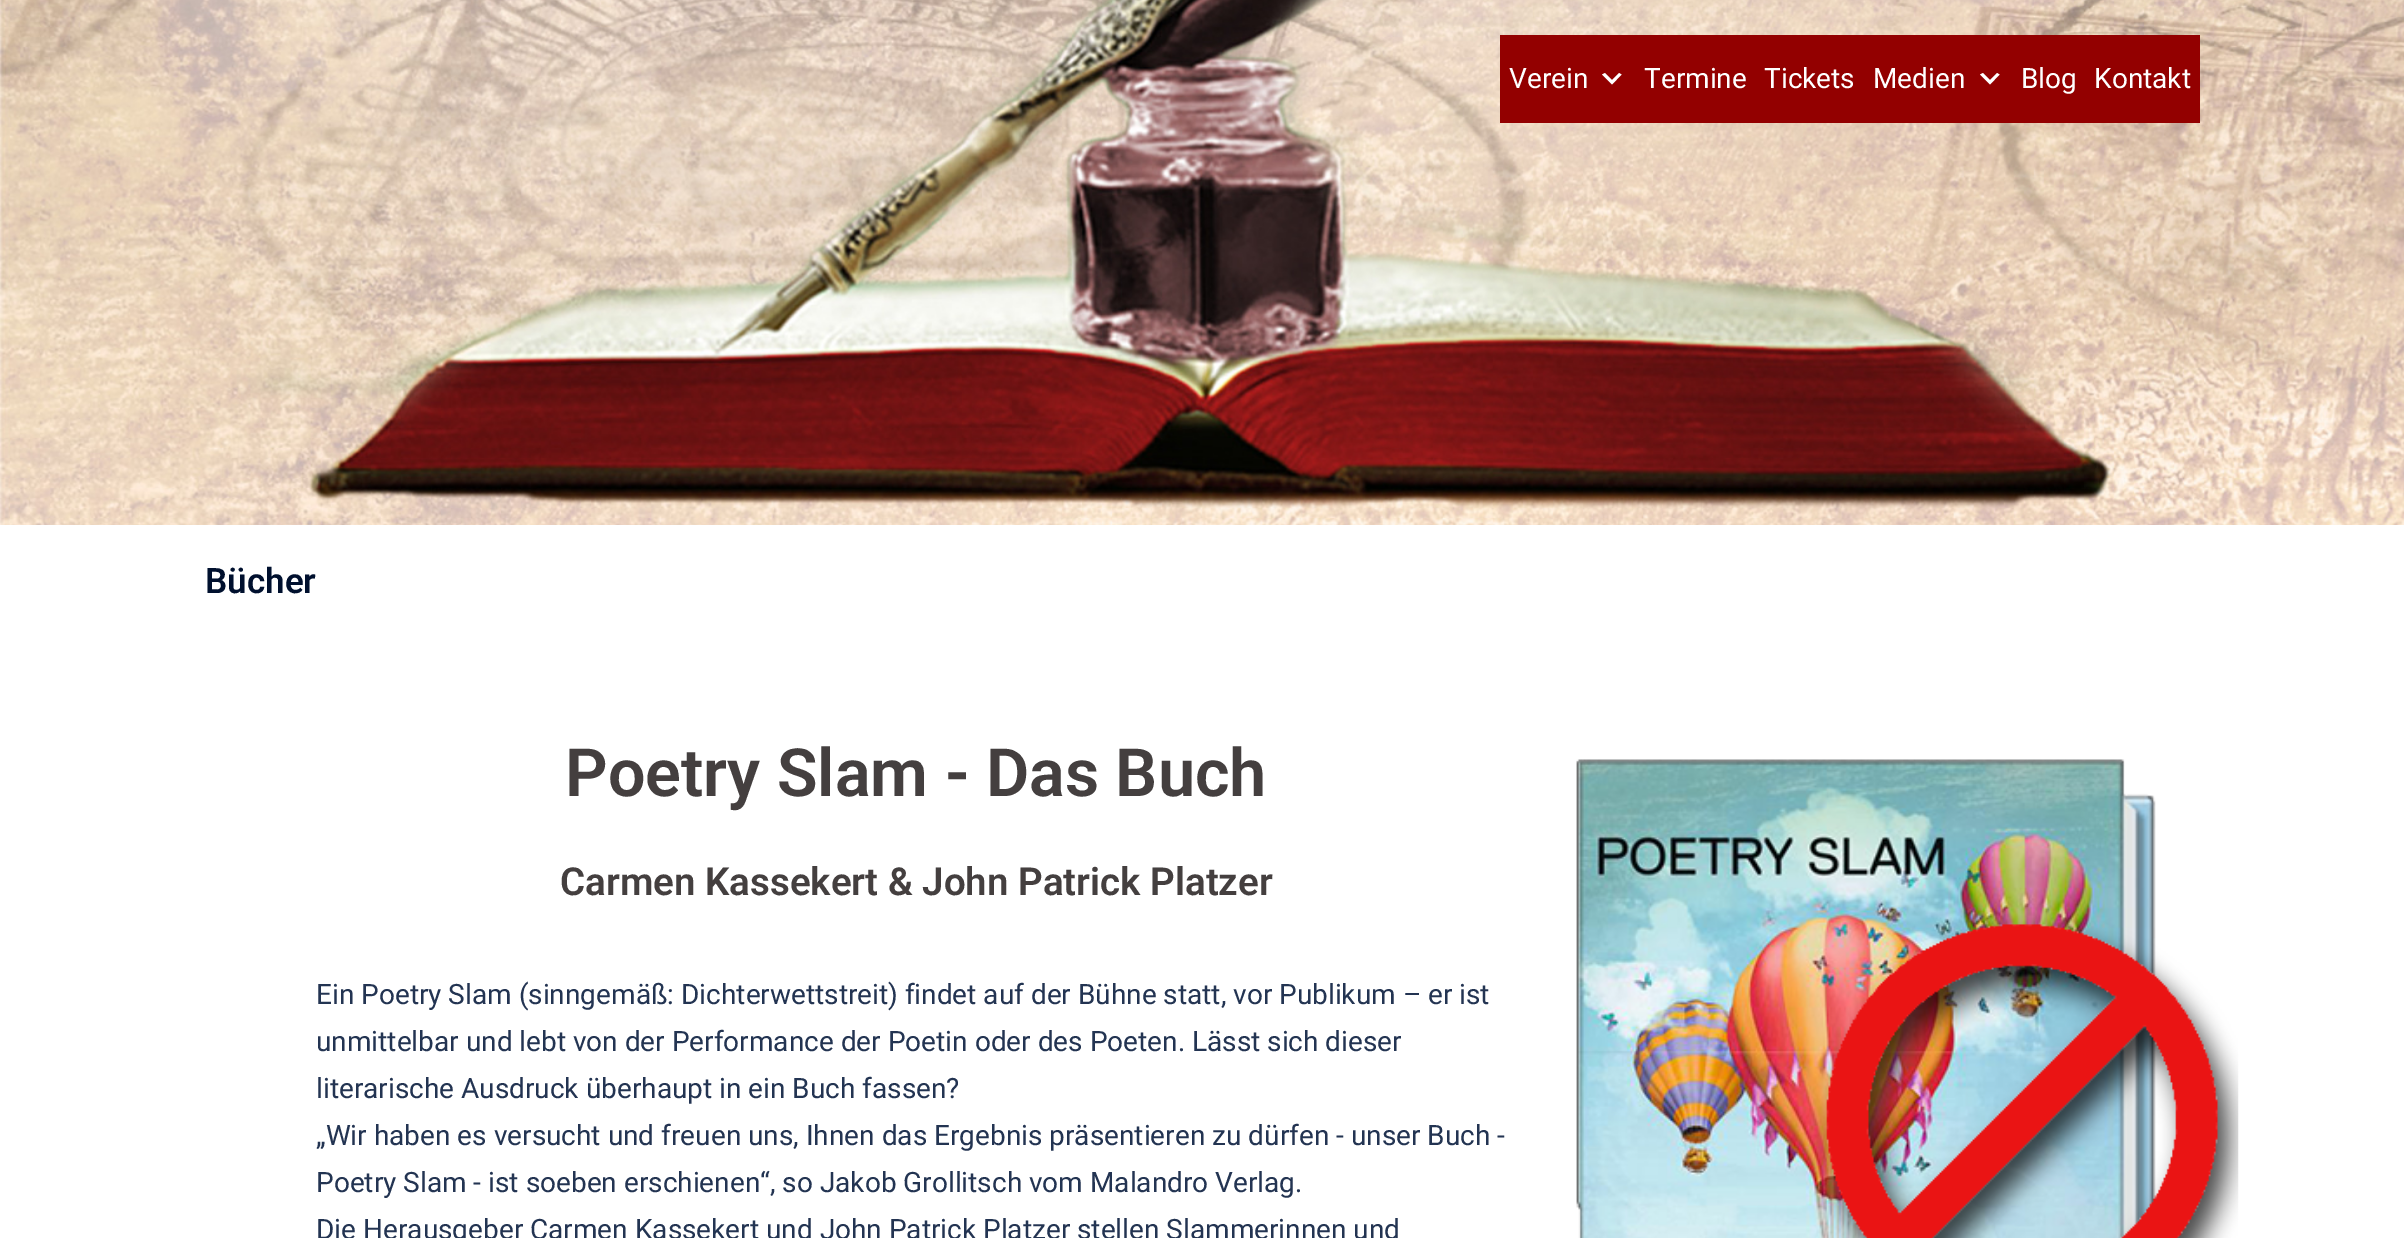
%!PS
<< /PageSize [2404 1238] >> setpagedevice
/rgb { 3 { 255 div 3 1 roll } repeat setrgbcolor } def
/font { [ exch dup neg 0 0 3 -1 roll 0 0 ] selectfont } def
/picture { 5 dict begin { /h /w /y /x /name } { exch def } forall
  gsave x y translate w h scale
  w h 8 [w 0 0 h 0 0] name (r) file false 3 colorimage grestore end } def
0 1238 translate 1 -1 scale
4 setmiterlimit
255 255 255 rgb
0 0 2404 1238 rectfill
(img/1.rgb) 0 0 2404 525 picture
147 0 0 rgb
1500 35 700 88 rectfill
255 255 255 rgb
1605 73 moveto 1612 80 lineto 1619 73 lineto 1621.5 74.5 lineto 1612 84.5 lineto 1602 74.5 lineto closepath fill
1983 73 moveto 1990 80 lineto 1997 73 lineto 1999.5 74.5 lineto 1990 84.5 lineto 1980 74.5 lineto closepath fill
(img/2.rgb) 1576 759 663 479 picture
/Roboto-Regular 28 font
[
  [(Verein) 1509 88]
  [(Termine) 1644 88]
  [(Tickets) 1764 88]
  [(Medien) 1873 88]
  [(Blog) 2021 88]
  [(Kontakt) 2094 88]
] { aload pop moveto show } forall
/Roboto-SemiBold 35 font
0 16 46 rgb
205 593 moveto (Bücher) show
/Roboto-SemiBold 66.5 font
68 63 63 rgb
565 796 moveto (Poetry Slam - Das Buch) show
/Roboto-SemiBold 38.5 font
560 895 moveto (Carmen Kassekert & John Patrick Platzer) show
/Roboto-Regular 28 font
35 52 82 rgb
[
  [(Ein Poetry Slam \(sinngemäß: Dichterwettstreit\) findet auf der Bühne statt, vor Publikum – er ist) 316 1004]
  [(unmittelbar und lebt von der Performance der Poetin oder des Poeten. Lässt sich dieser) 316 1051]
  [(literarische Ausdruck überhaupt in ein Buch fassen?) 316 1098]
  [(„Wir haben es versucht und freuen uns, Ihnen das Ergebnis präsentieren zu dürfen - unser Buch -) 316 1145]
  [(Poetry Slam - ist soeben erschienen“, so Jakob Grollitsch vom Malandro Verlag.) 316 1192]
  [(Die Herausgeber Carmen Kassekert und John Patrick Platzer stellen Slammerinnen und) 316 1239]
] { aload pop moveto show } forall
showpage
